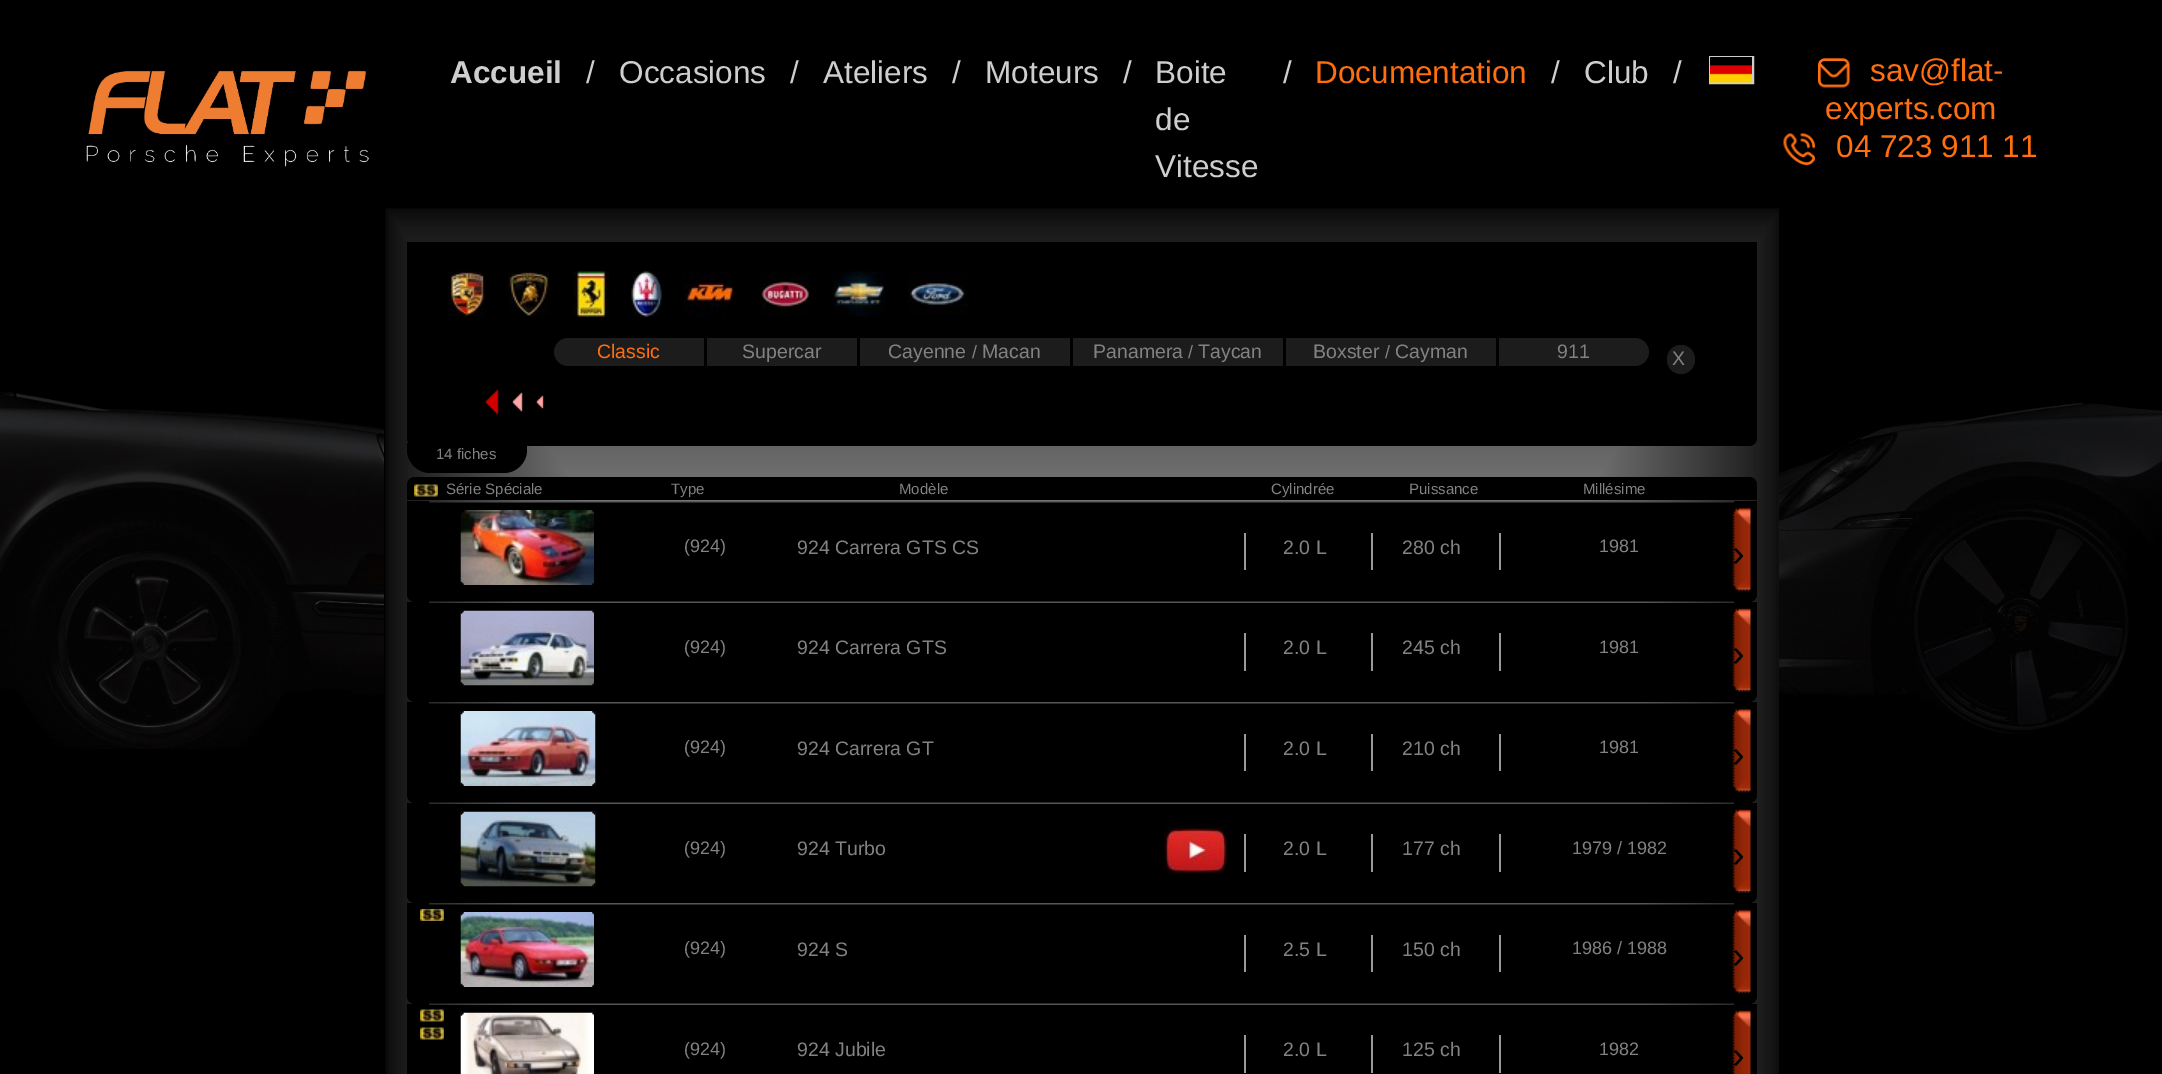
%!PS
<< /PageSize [2162 1074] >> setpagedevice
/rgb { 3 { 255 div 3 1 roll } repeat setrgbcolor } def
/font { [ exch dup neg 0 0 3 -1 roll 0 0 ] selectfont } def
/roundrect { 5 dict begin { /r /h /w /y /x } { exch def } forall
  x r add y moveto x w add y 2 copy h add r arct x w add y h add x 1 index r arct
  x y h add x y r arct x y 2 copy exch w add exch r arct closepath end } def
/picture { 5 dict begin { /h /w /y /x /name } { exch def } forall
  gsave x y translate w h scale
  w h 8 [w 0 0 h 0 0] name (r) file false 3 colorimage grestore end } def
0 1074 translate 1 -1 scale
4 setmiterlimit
0 0 0 rgb
0 0 2162 1074 rectfill
(img/1.rgb) 0 392 2162 357 picture
(img/2.rgb) 86 70 283 97 picture
206 206 206 rgb
2 setlinewidth
1710 57 43 26 rectstroke
(img/3.rgb) 1710 57 42 26 picture
(img/4.rgb) 1818 58 32 30 picture
(img/5.rgb) 1783 133 32 32 picture
(img/6.rgb) 384 208 1395 866 picture
0 0 0 rgb
407 242 moveto 1757 242 lineto 1757 438 lineto 1757 442.5 1753.5 446 1749 446 curveto 415 446 lineto 410.5 446 407 442.5 407 438 curveto closepath fill
(img/7.rgb) 448 271 38 46 picture
(img/8.rgb) 508 271 41 46 picture
(img/9.rgb) 573 271 36 46 picture
(img/10.rgb) 631 271 31 46 picture
(img/11.rgb) 684 271 50 46 picture
(img/12.rgb) 760 271 50 45 picture
(img/13.rgb) 832 271 53 46 picture
(img/14.rgb) 907 271 61 45 picture
28 28 28 rgb
568 338 moveto 704 338 lineto 704 366 lineto 568 366 lineto 560.5 366 554 359.5 554 352 curveto 554 344.5 560.5 338 568 338 curveto closepath fill
[
  [707 338 150 28 28 28 28]
  [860 338 210 28 28 28 28]
  [1073 338 210 28 28 28 28]
  [1286 338 210 28 28 28 28]
] { aload pop rgb rectfill } forall
1499 338 moveto 1635 338 lineto 1642.5 338 1649 344.5 1649 352 curveto 1649 359.5 1642.5 366 1635 366 curveto 1499 366 lineto closepath fill
1667 345 28 29 14 roundrect fill
(img/15.rgb) 485 389 59 26 picture
0 0 0 rgb
407 443 moveto 527 443 lineto 527 450 lineto 527 462.5 516.5 473 504 473 curveto 430 473 lineto 417.5 473 407 462.5 407 450 curveto closepath fill
415 477 moveto 1749 477 lineto 1753.5 477 1757 480.5 1757 485 curveto 1757 500 lineto 407 500 lineto 407 485 lineto 407 480.5 410.5 477 415 477 curveto closepath fill
(img/16.rgb) 414 484 24 13 picture
407 501 moveto 1757 501 lineto 1757 594 lineto 1757 598.5 1753.5 602 1749 602 curveto 415 602 lineto 410.5 602 407 598.5 407 594 curveto closepath fill
(img/17.rgb) 429 501 1305 2 picture
(img/18.rgb) 460 510 134 75 picture
(img/19.rgb) 460 510 134 75 picture
[
  [1244 533 2 37 153 153 153]
  [1371 533 2 37 153 153 153]
  [1499 533 2 37 153 153 153]
] { aload pop rgb rectfill } forall
(img/20.rgb) 1732 508 19 84 picture
0 0 0 rgb
407 602 moveto 1757 602 lineto 1757 694 lineto 1757 698.5 1753.5 702 1749 702 curveto 415 702 lineto 410.5 702 407 698.5 407 694 curveto closepath fill
(img/21.rgb) 429 601 1305 2 picture
(img/22.rgb) 460 610 134 76 picture
(img/23.rgb) 460 610 134 76 picture
[
  [1244 633 2 38 153 153 153]
  [1371 633 2 38 153 153 153]
  [1499 633 2 38 153 153 153]
] { aload pop rgb rectfill } forall
(img/24.rgb) 1732 608 19 84 picture
0 0 0 rgb
407 702 moveto 1757 702 lineto 1757 795 lineto 1757 799.5 1753.5 803 1749 803 curveto 415 803 lineto 410.5 803 407 799.5 407 795 curveto closepath fill
(img/17.rgb) 429 702 1305 2 picture
(img/25.rgb) 460 711 136 75 picture
(img/26.rgb) 460 711 136 75 picture
[
  [1244 734 2 37 153 153 153]
  [1371 734 2 37 153 153 153]
  [1499 734 2 37 153 153 153]
] { aload pop rgb rectfill } forall
(img/20.rgb) 1732 709 19 84 picture
0 0 0 rgb
407 803 moveto 1757 803 lineto 1757 895 lineto 1757 899.5 1753.5 903 1749 903 curveto 415 903 lineto 410.5 903 407 899.5 407 895 curveto closepath fill
(img/21.rgb) 429 802 1305 2 picture
(img/27.rgb) 460 811 136 76 picture
(img/28.rgb) 460 811 136 76 picture
(img/29.rgb) 1164 826 63 49 picture
[
  [1244 834 2 38 153 153 153]
  [1371 834 2 38 153 153 153]
  [1499 834 2 38 153 153 153]
] { aload pop rgb rectfill } forall
(img/24.rgb) 1732 809 19 84 picture
0 0 0 rgb
407 903 moveto 1757 903 lineto 1757 996 lineto 1757 1000.5 1753.5 1004 1749 1004 curveto 415 1004 lineto 410.5 1004 407 1000.5 407 996 curveto closepath fill
(img/17.rgb) 429 903 1305 2 picture
(img/30.rgb) 420 909 24 12 picture
(img/31.rgb) 460 912 134 75 picture
(img/32.rgb) 460 912 134 75 picture
[
  [1244 935 2 37 153 153 153]
  [1371 935 2 37 153 153 153]
  [1499 935 2 37 153 153 153]
] { aload pop rgb rectfill } forall
(img/20.rgb) 1732 910 19 84 picture
0 0 0 rgb
407 1004 1350 70 rectfill
(img/21.rgb) 429 1003 1305 2 picture
(img/16.rgb) 420 1009 24 13 picture
(img/16.rgb) 420 1027 24 13 picture
(img/33.rgb) 460 1012 134 62 picture
(img/34.rgb) 460 1012 134 4 picture
[
  [1244 1035 2 38 153 153 153]
  [1371 1035 2 38 153 153 153]
  [1499 1035 2 38 153 153 153]
] { aload pop rgb rectfill } forall
(img/35.rgb) 1732 1010 19 64 picture
/LiberationSans-Bold 31.5 font
206 206 206 rgb
450 83 moveto (Accueil) show
/LiberationSans-Regular 31.5 font
[
  [(/) 586 83]
  [(Occasions) 619 83]
  [(/) 790 83]
  [(Ateliers) 823 83]
  [(/) 952 83]
  [(Moteurs) 985 83]
  [(/) 1123 83]
  [(Boite) 1155 83]
  [(de) 1155 130]
  [(Vitesse) 1155 177]
  [(/) 1283 83]
] { aload pop moveto show } forall
255 110 15 rgb
1315 83 moveto (Documentation) show
206 206 206 rgb
[
  [(/) 1551 83]
  [(Club) 1584 83]
  [(/) 1673 83]
] { aload pop moveto show } forall
255 110 15 rgb
[
  [(sav@flat-) 1870 81]
  [(experts.com) 1825 119]
  [(04 723 911 11) 1836 157]
] { aload pop moveto show } forall
/LiberationSans-Regular 19.5 font
597 358 moveto (Classic) show
130 130 130 rgb
742 358 moveto (Supercar) show
888 358 moveto (Cayenne) show
/LiberationSans-Regular 18 font
972 358 moveto (/) show
/LiberationSans-Regular 19.5 font
982 358 moveto (Macan) show
1093 358 moveto (Panamera) show
/LiberationSans-Regular 18 font
1188 358 moveto (/) show
/LiberationSans-Regular 19.5 font
1198 358 moveto (Taycan) show
1313 358 moveto (Boxster) show
/LiberationSans-Regular 18 font
1385 358 moveto (/) show
/LiberationSans-Regular 19.5 font
[
  [(Cayman) 1395 358]
  [(911) 1557 358]
  [(X) 1672 365]
] { aload pop moveto show } forall
/LiberationSans-Regular 15 font
[
  [(14 fiches) 436 459]
  [(Série Spéciale) 446 494]
  [(Type) 671 494]
  [(Modèle) 899 494]
  [(Cylindrée) 1271 494]
  [(Puissance) 1409 494]
  [(Millésime) 1583 494]
] { aload pop moveto show } forall
/LiberationSans-Regular 18 font
684 552 moveto (\(924\)) show
/LiberationSans-Regular 19.5 font
[
  [(924 Carrera GTS CS) 797 554]
  [(2.0 L) 1283 554]
  [(280 ch) 1402 554]
] { aload pop moveto show } forall
/LiberationSans-Regular 18 font
1599 552 moveto (1981) show
/LiberationSans-Regular 38 font
0 0 0 rgb
1732 566 moveto (›) show
/LiberationSans-Regular 18 font
130 130 130 rgb
684 653 moveto (\(924\)) show
/LiberationSans-Regular 19.5 font
[
  [(924 Carrera GTS) 797 654]
  [(2.0 L) 1283 654]
  [(245 ch) 1402 654]
] { aload pop moveto show } forall
/LiberationSans-Regular 18 font
1599 653 moveto (1981) show
/LiberationSans-Regular 38 font
0 0 0 rgb
1732 666 moveto (›) show
/LiberationSans-Regular 18 font
130 130 130 rgb
684 753 moveto (\(924\)) show
/LiberationSans-Regular 19.5 font
[
  [(924 Carrera GT) 797 755]
  [(2.0 L) 1283 755]
  [(210 ch) 1402 755]
] { aload pop moveto show } forall
/LiberationSans-Regular 18 font
1599 753 moveto (1981) show
/LiberationSans-Regular 38 font
0 0 0 rgb
1732 767 moveto (›) show
/LiberationSans-Regular 18 font
130 130 130 rgb
684 854 moveto (\(924\)) show
/LiberationSans-Regular 19.5 font
[
  [(924 Turbo) 797 855]
  [(2.0 L) 1283 855]
  [(177 ch) 1402 855]
] { aload pop moveto show } forall
/LiberationSans-Regular 18 font
1572 854 moveto (1979 / 1982) show
/LiberationSans-Regular 38 font
0 0 0 rgb
1732 867 moveto (›) show
/LiberationSans-Regular 18 font
130 130 130 rgb
684 954 moveto (\(924\)) show
/LiberationSans-Regular 19.5 font
[
  [(924 S) 797 956]
  [(2.5 L) 1283 956]
  [(150 ch) 1402 956]
] { aload pop moveto show } forall
/LiberationSans-Regular 18 font
1572 954 moveto (1986 / 1988) show
/LiberationSans-Regular 38 font
0 0 0 rgb
1732 968 moveto (›) show
/LiberationSans-Regular 18 font
130 130 130 rgb
684 1055 moveto (\(924\)) show
/LiberationSans-Regular 19.5 font
[
  [(924 Jubile) 797 1056]
  [(2.0 L) 1283 1056]
  [(125 ch) 1402 1056]
] { aload pop moveto show } forall
/LiberationSans-Regular 18 font
1599 1055 moveto (1982) show
/LiberationSans-Regular 38 font
0 0 0 rgb
1732 1068 moveto (›) show
showpage
